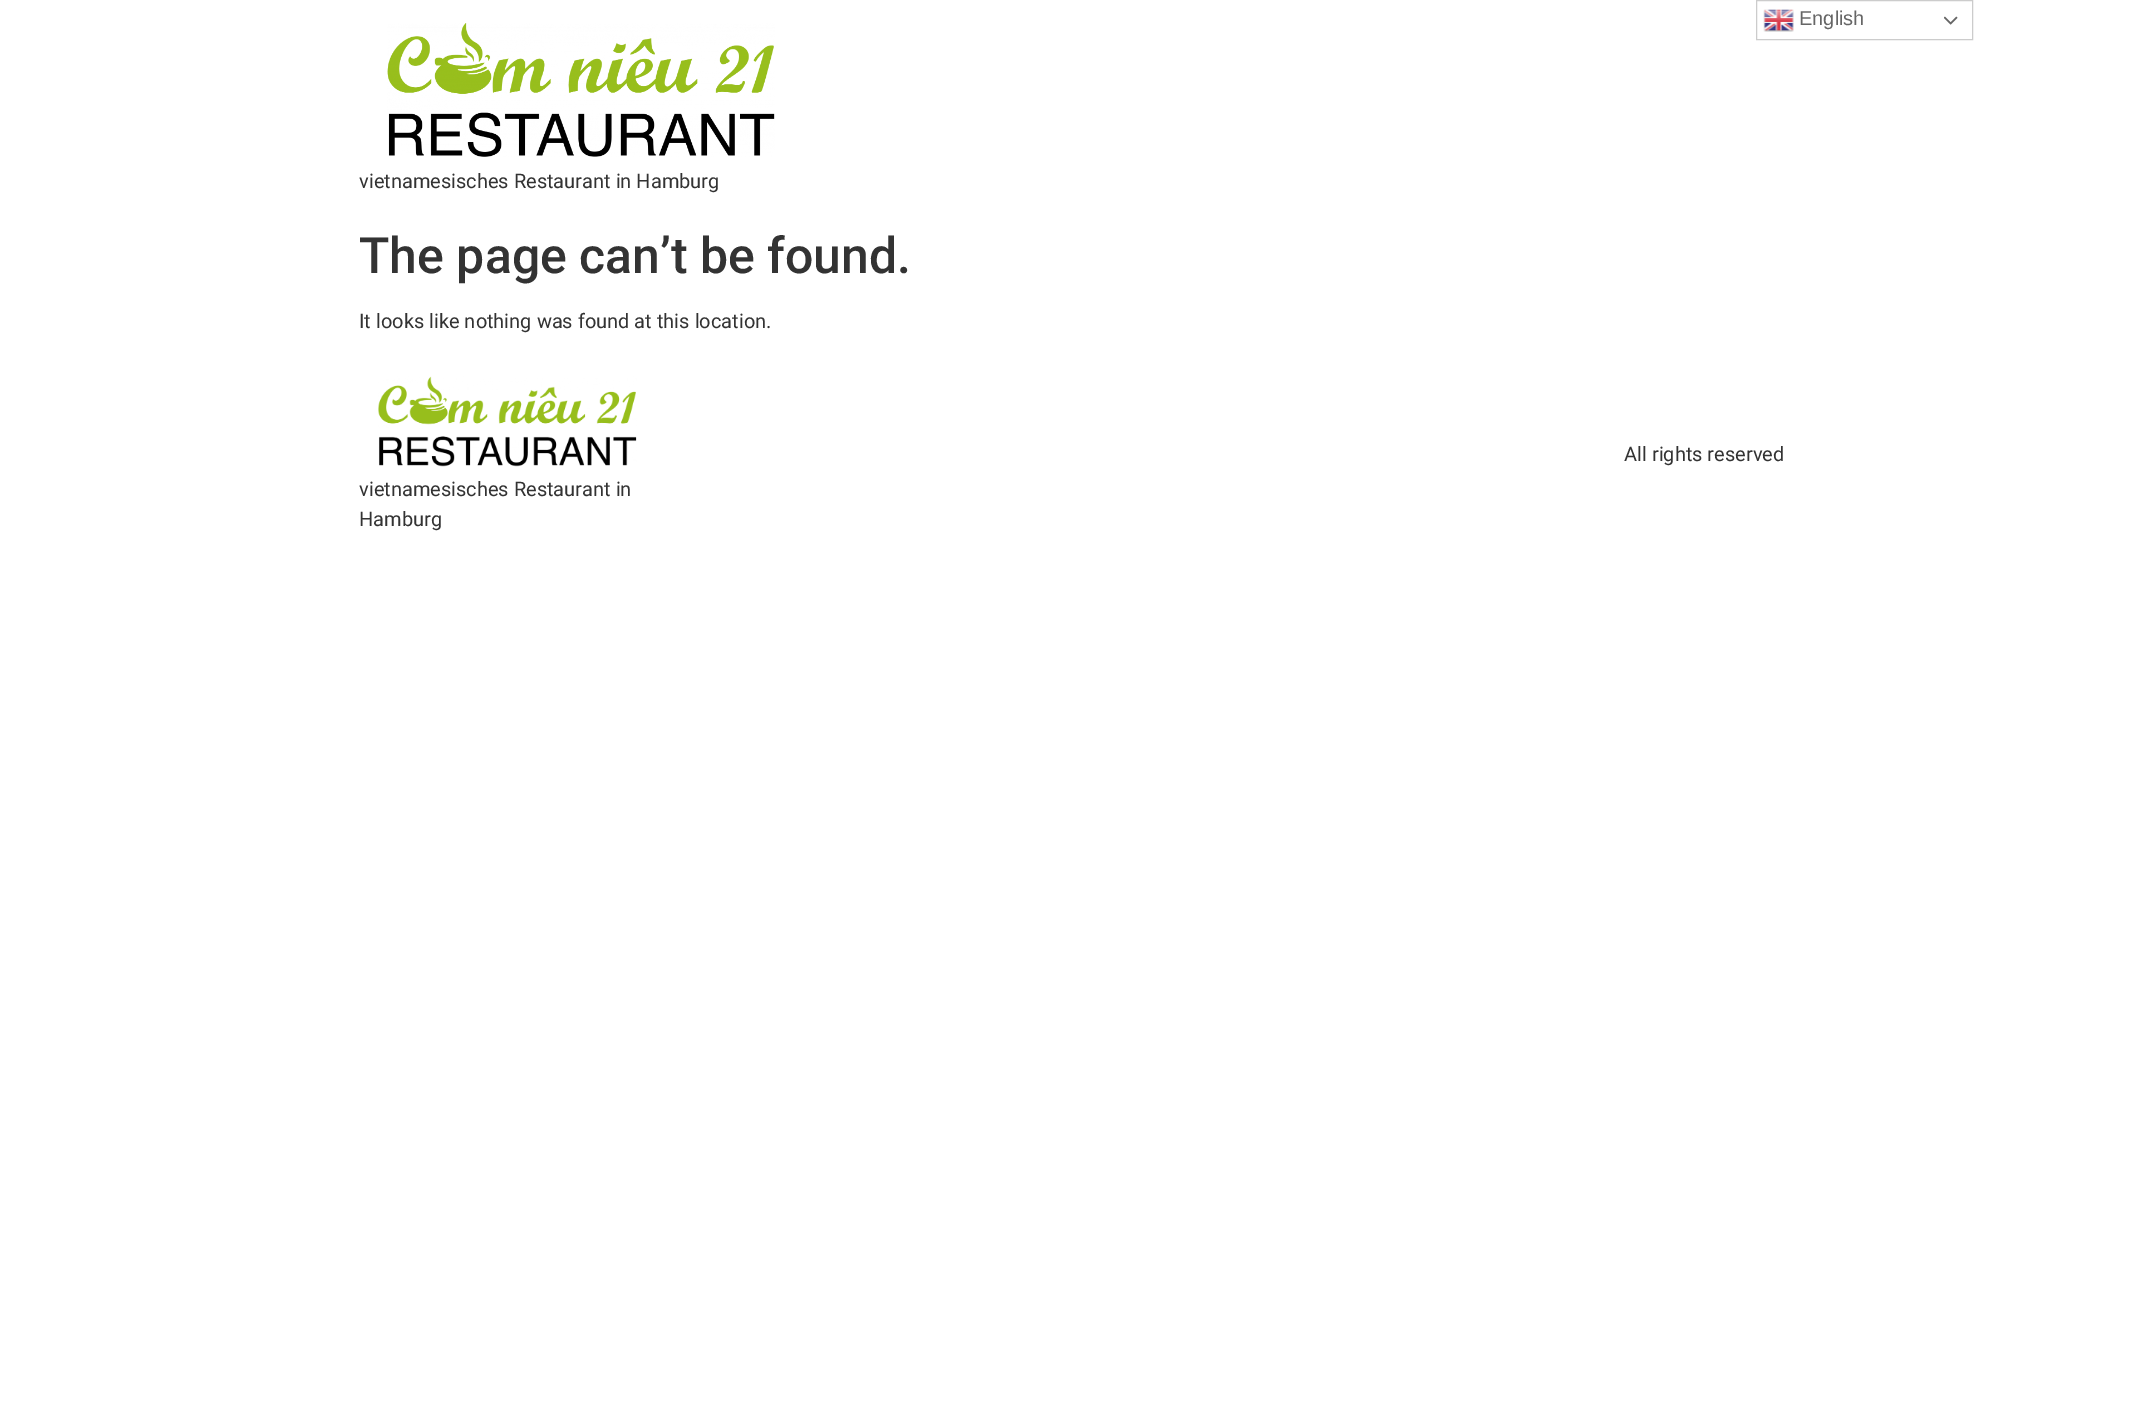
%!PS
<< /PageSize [2143 1410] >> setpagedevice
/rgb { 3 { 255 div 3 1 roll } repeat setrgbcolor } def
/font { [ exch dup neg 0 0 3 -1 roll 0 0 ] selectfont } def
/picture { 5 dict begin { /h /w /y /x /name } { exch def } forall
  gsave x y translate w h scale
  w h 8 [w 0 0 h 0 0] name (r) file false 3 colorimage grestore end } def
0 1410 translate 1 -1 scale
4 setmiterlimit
255 255 255 rgb
0 0 2143 1410 rectfill
204 204 204 rgb
1756.5 0.5 216 39 rectstroke
(img/1.rgb) 1763 9 31 23 picture
(img/2.rgb) 1944 16 14 9 picture
(img/3.rgb) 387 23 388 134 picture
(img/4.rgb) 378 376 259 91 picture
/LiberationSans-Regular 20 font
102 102 102 rgb
1799 25 moveto (English) show
/Roboto-Regular 20 font
51 51 51 rgb
359 188 moveto (vietnamesisches Restaurant in Hamburg) show
/Roboto-Medium 50 font
359 273 moveto (The page can’t be found.) show
/Roboto-Regular 20 font
[
  [(It looks like nothing was found at this location.) 359 328]
  [(All rights reserved) 1624 461]
  [(vietnamesisches Restaurant in) 359 496]
  [(Hamburg) 359 526]
] { aload pop moveto show } forall
showpage
